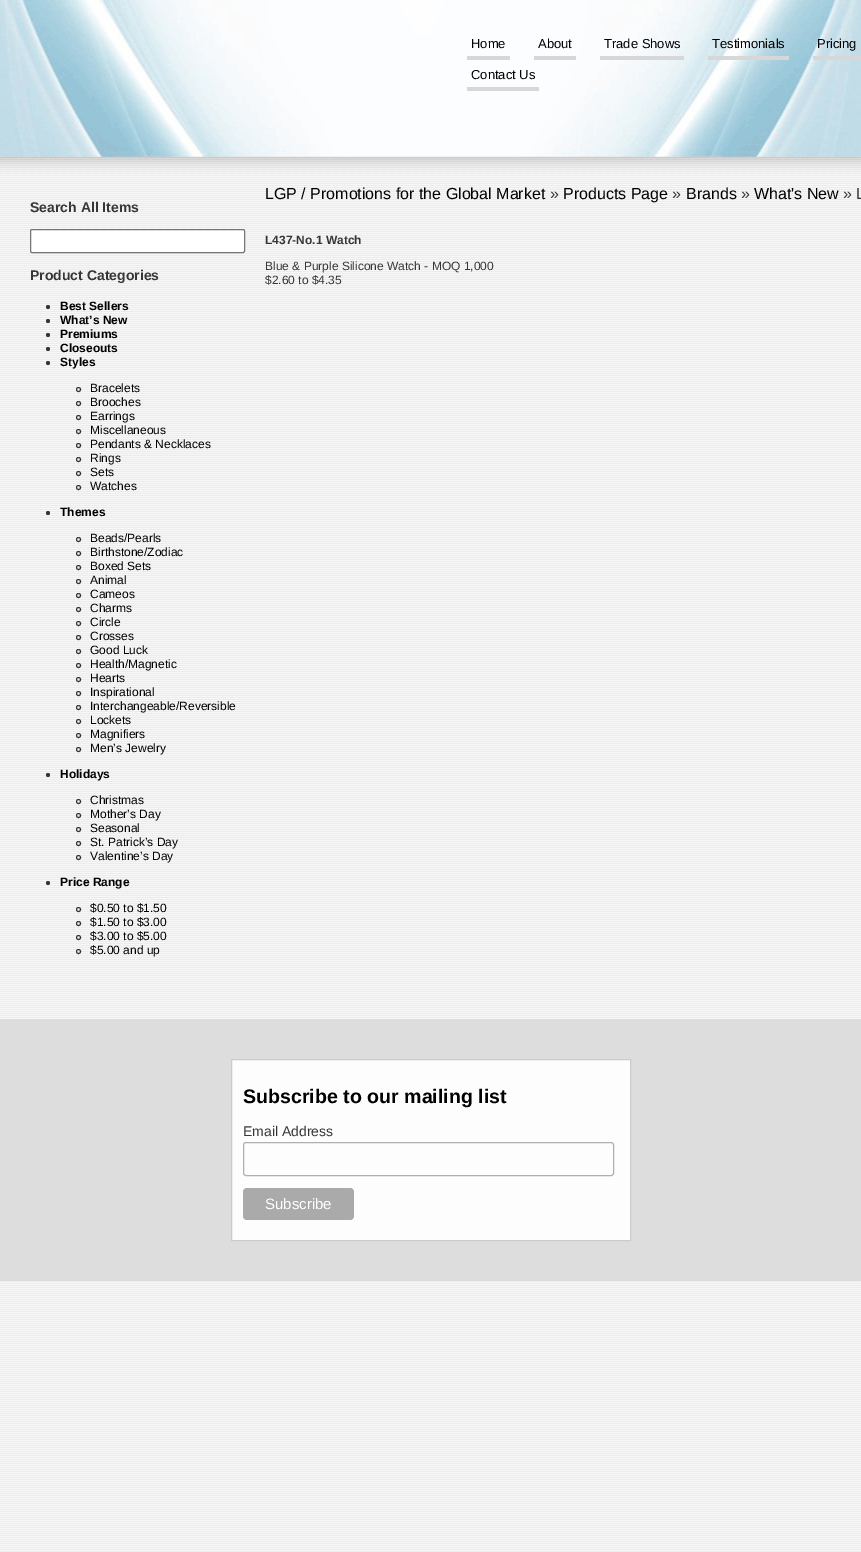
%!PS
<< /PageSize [861 1552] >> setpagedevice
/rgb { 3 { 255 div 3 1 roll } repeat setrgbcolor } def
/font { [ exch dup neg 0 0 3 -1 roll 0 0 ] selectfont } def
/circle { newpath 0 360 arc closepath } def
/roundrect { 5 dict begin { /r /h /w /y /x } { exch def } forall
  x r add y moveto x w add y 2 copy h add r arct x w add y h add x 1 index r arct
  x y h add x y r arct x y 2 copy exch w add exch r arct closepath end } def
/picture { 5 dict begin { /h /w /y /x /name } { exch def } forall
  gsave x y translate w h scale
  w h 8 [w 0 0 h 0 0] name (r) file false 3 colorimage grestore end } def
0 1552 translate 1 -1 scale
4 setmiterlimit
255 255 255 rgb
0 0 861 1552 rectfill
(img/1.rgb) 0 0 861 1552 picture
[
  [467 56 43 4 215 215 215]
  [534 56 42 4 215 215 215]
  [600 56 84 4 215 215 215]
  [708 56 81 4 215 215 215]
  [813 56 48 4 215 215 215]
  [467 87 72 4 215 215 215]
] { aload pop rgb rectfill } forall
255 255 255 rgb
30.5 229.5 214 23 1.5 roundrect gsave fill grestore
118 118 118 rgb
stroke
54 54 53 rgb
48 307 2 circle fill
48 321 2 circle fill
48 335 2 circle fill
48 349 2 circle fill
48 363 2 circle fill
78.5 389.5 2 circle stroke
78.5 403.5 2 circle stroke
78.5 417.5 2 circle stroke
78.5 431.5 2 circle stroke
78.5 445.5 2 circle stroke
78.5 459.5 2 circle stroke
78.5 473.5 2 circle stroke
78.5 487.5 2 circle stroke
48 513 2 circle fill
78.5 539.5 2 circle stroke
78.5 553.5 2 circle stroke
78.5 567.5 2 circle stroke
78.5 581.5 2 circle stroke
78.5 595.5 2 circle stroke
78.5 609.5 2 circle stroke
78.5 623.5 2 circle stroke
78.5 637.5 2 circle stroke
78.5 651.5 2 circle stroke
78.5 665.5 2 circle stroke
78.5 679.5 2 circle stroke
78.5 693.5 2 circle stroke
78.5 707.5 2 circle stroke
78.5 721.5 2 circle stroke
78.5 735.5 2 circle stroke
78.5 749.5 2 circle stroke
48 775 2 circle fill
78.5 801.5 2 circle stroke
78.5 815.5 2 circle stroke
78.5 829.5 2 circle stroke
78.5 843.5 2 circle stroke
78.5 857.5 2 circle stroke
48 883 2 circle fill
78.5 909.5 2 circle stroke
78.5 923.5 2 circle stroke
78.5 937.5 2 circle stroke
78.5 951.5 2 circle stroke
221 221 221 rgb
0 1019 861 262 rectfill
253 253 253 rgb
231.5 1059.5 moveto 630.5 1059.5 lineto 630.5 1240.5 lineto 231.5 1240.5 lineto closepath gsave fill grestore
204 204 204 rgb
stroke
171 176 178 rgb
243.5 1142.5 370 33 2.5 roundrect stroke
170 170 170 rgb
243 1188 111 32 4 roundrect fill
/LiberationSans-Regular 13 font
0 0 0 rgb
[
  [(Home) 471 48]
  [(About) 538 48]
  [(Trade Shows) 604 48]
  [(Testimonials) 712 48]
  [(Pricing) 817 48]
  [(Contact Us) 471 79]
] { aload pop moveto show } forall
/LiberationSans-Bold 14 font
54 54 53 rgb
30 212 moveto (Search All Items) show
30 280 moveto (Product Categories) show
/LiberationSans-Bold 12 font
0 0 0 rgb
[
  [(Best Sellers) 60 310]
  [(What’s New) 60 324]
  [(Premiums) 60 338]
  [(Closeouts) 60 352]
  [(Styles) 60 366]
] { aload pop moveto show } forall
/LiberationSans-Regular 12 font
[
  [(Bracelets) 90 392]
  [(Brooches) 90 406]
  [(Earrings) 90 420]
  [(Miscellaneous) 90 434]
  [(Pendants & Necklaces) 90 448]
  [(Rings) 90 462]
  [(Sets) 90 476]
  [(Watches) 90 490]
] { aload pop moveto show } forall
/LiberationSans-Bold 12 font
60 516 moveto (Themes) show
/LiberationSans-Regular 12 font
[
  [(Beads/Pearls) 90 542]
  [(Birthstone/Zodiac) 90 556]
  [(Boxed Sets) 90 570]
  [(Animal) 90 584]
  [(Cameos) 90 598]
  [(Charms) 90 612]
  [(Circle) 90 626]
  [(Crosses) 90 640]
  [(Good Luck) 90 654]
  [(Health/Magnetic) 90 668]
  [(Hearts) 90 682]
  [(Inspirational) 90 696]
  [(Interchangeable/Reversible) 90 710]
  [(Lockets) 90 724]
  [(Magnifiers) 90 738]
  [(Men’s Jewelry) 90 752]
] { aload pop moveto show } forall
/LiberationSans-Bold 12 font
60 778 moveto (Holidays) show
/LiberationSans-Regular 12 font
[
  [(Christmas) 90 804]
  [(Mother’s Day) 90 818]
  [(Seasonal) 90 832]
  [(St. Patrick’s Day) 90 846]
  [(Valentine’s Day) 90 860]
] { aload pop moveto show } forall
/LiberationSans-Bold 12 font
60 886 moveto (Price Range) show
/LiberationSans-Regular 12 font
[
  [($0.50 to $1.50) 90 912]
  [($1.50 to $3.00) 90 926]
  [($3.00 to $5.00) 90 940]
  [($5.00 and up) 90 954]
] { aload pop moveto show } forall
/LiberationSans-Regular 16 font
265 199 moveto (LGP / Promotions for the Global Market) show
54 54 53 rgb
550 199 moveto (») show
0 0 0 rgb
563 199 moveto (Products Page) show
54 54 53 rgb
672 199 moveto (») show
0 0 0 rgb
686 199 moveto (Brands) show
54 54 53 rgb
741 199 moveto (») show
0 0 0 rgb
754 199 moveto (What's New) show
54 54 53 rgb
843 199 moveto (» L) show
/LiberationSans-Bold 12 font
265 244 moveto (L437-No.1 Watch) show
/LiberationSans-Regular 12 font
265 270 moveto (Blue & Purple Silicone Watch - MOQ 1,000) show
265 284 moveto ($2.60 to $4.35) show
/LiberationSans-Bold 19.6 font
0 0 0 rgb
243 1103 moveto (Subscribe to our mailing list) show
/LiberationSans-Regular 14 font
54 54 53 rgb
243 1136 moveto (Email Address) show
/LiberationSans-Regular 15 font
255 255 255 rgb
265 1209 moveto (Subscribe) show
showpage
